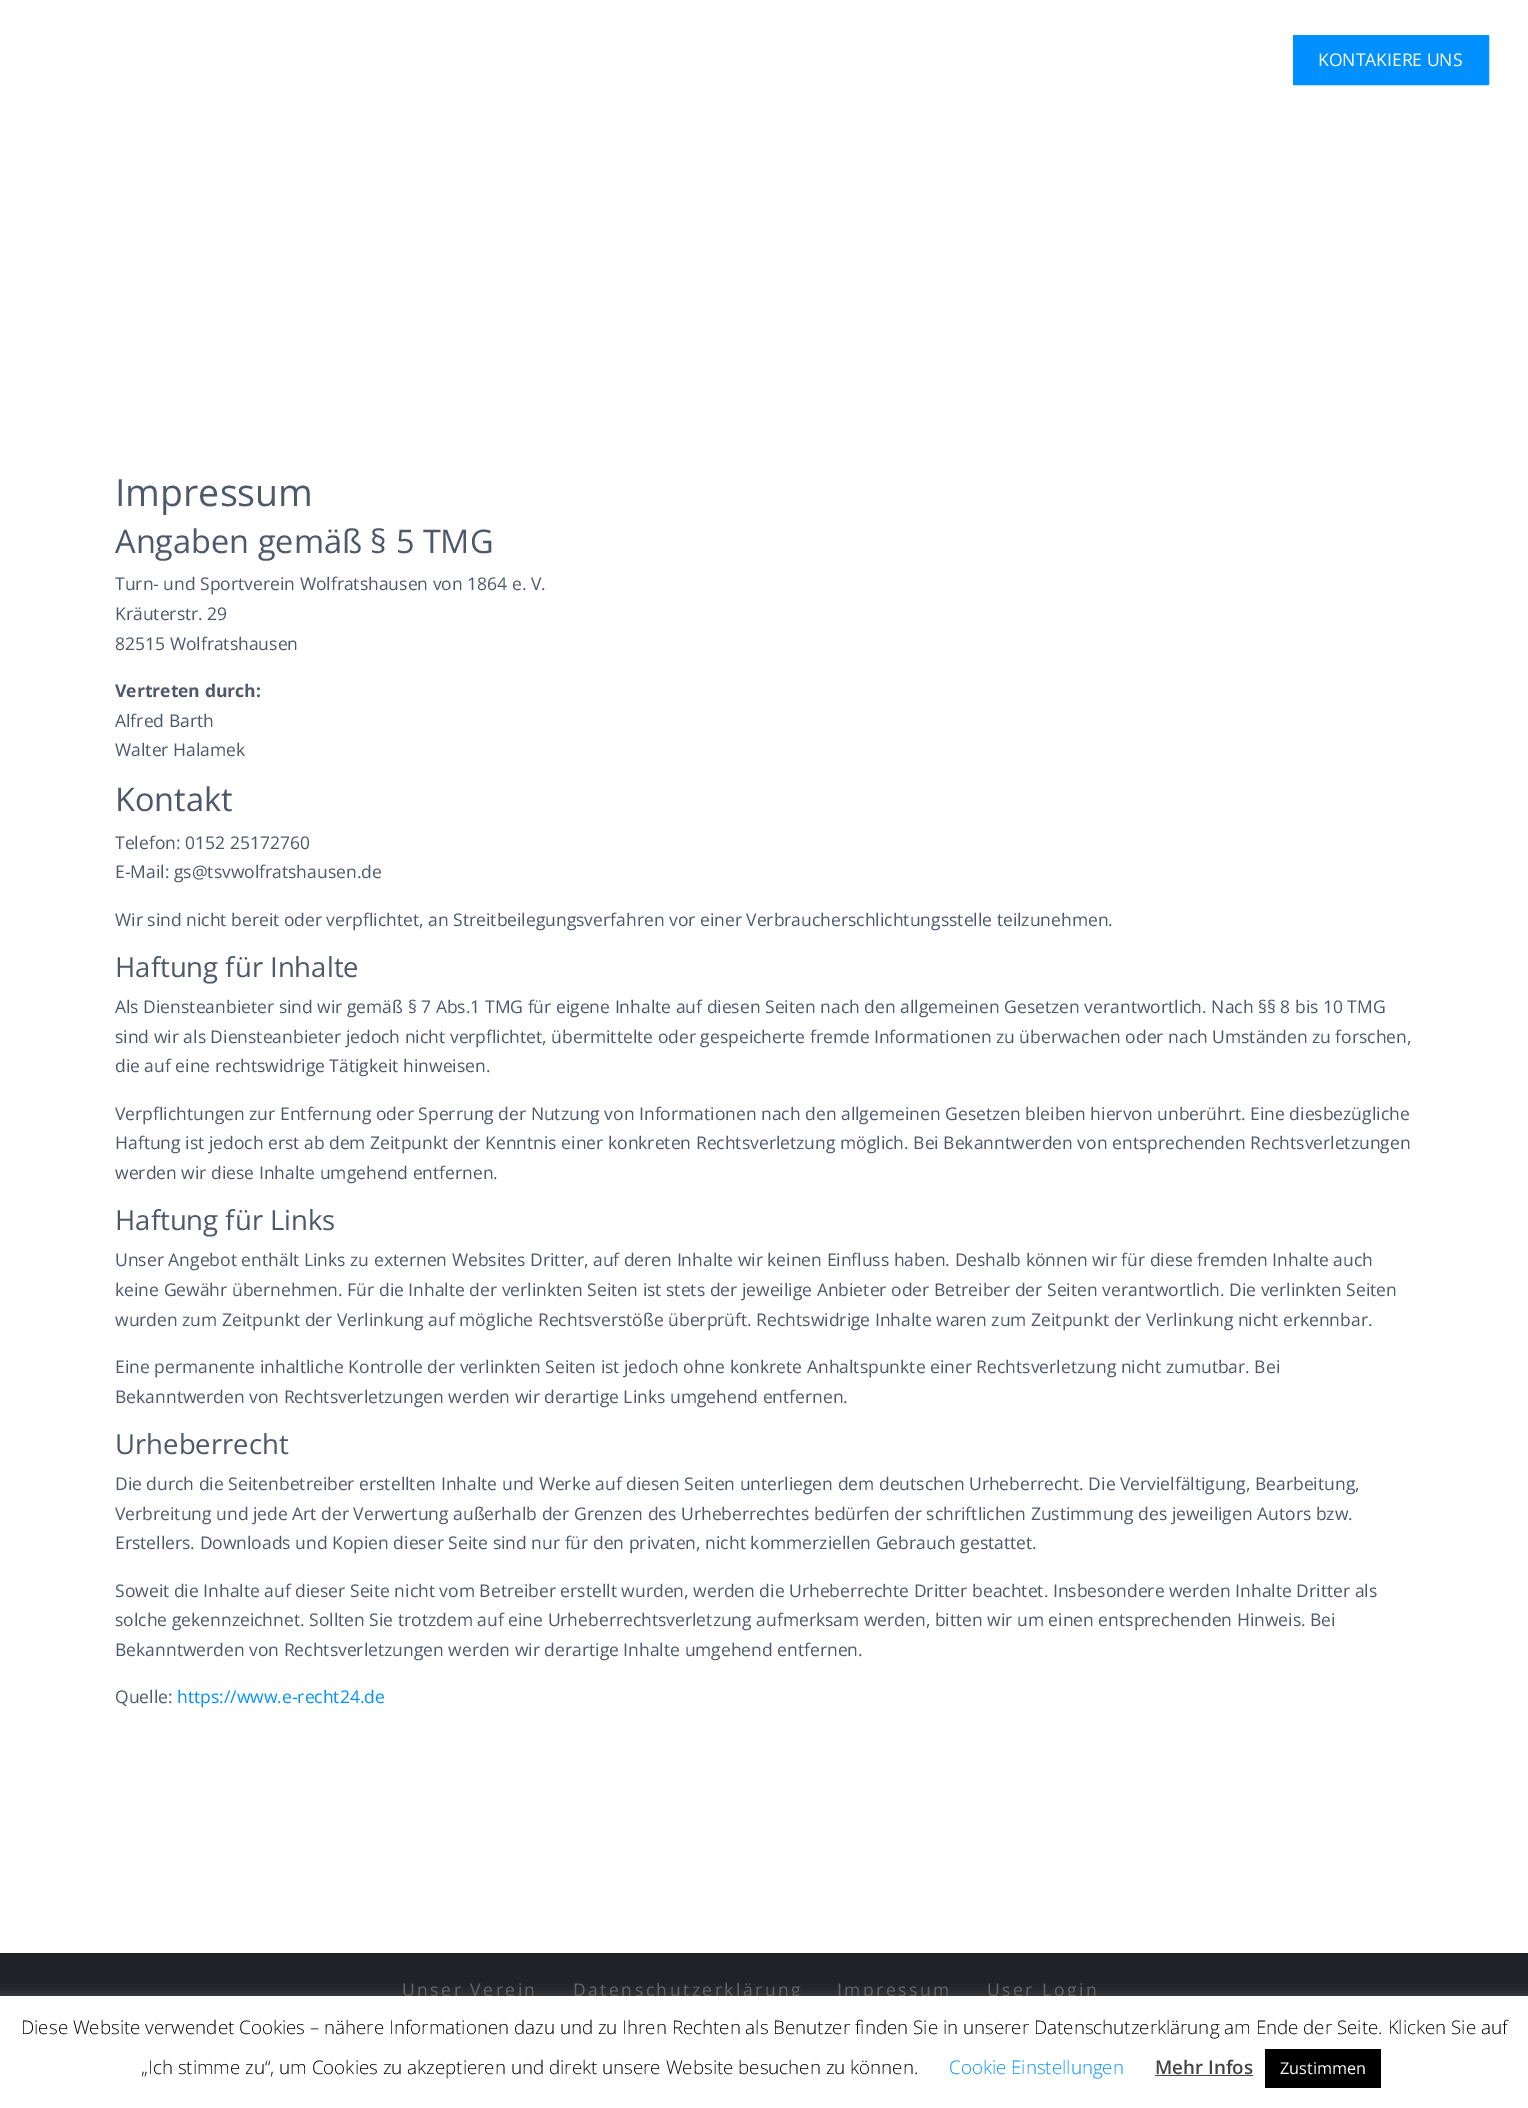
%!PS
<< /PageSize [1528 2108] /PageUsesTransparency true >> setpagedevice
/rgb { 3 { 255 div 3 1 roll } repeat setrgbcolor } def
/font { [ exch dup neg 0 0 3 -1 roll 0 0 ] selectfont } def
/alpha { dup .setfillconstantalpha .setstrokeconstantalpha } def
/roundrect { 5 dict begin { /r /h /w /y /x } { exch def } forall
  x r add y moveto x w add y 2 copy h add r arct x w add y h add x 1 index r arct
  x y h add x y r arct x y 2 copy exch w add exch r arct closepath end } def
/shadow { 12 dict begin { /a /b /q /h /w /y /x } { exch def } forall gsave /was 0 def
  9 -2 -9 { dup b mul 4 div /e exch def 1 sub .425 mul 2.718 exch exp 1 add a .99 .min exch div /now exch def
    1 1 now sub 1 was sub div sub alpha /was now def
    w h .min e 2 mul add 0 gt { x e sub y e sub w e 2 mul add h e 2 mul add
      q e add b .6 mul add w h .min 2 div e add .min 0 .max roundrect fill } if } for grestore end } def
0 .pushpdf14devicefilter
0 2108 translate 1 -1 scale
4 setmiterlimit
255 255 255 rgb
0 0 1528 2108 rectfill
0 144 255 rgb
1293.5 35.5 195 49 0.5 roundrect gsave fill grestore
stroke
33 34 40 rgb
0 1953 1528 43 rectfill
172 171 171 rgb
0 1995 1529 113 0 6 0.3 shadow
/OpenSans-Regular 17.5 font
255 255 255 rgb
1318 66 moveto (KONTAKIERE UNS) show
/OpenSans-Regular 37.5 font
78 88 107 rgb
115 506 moveto (Impressum) show
/OpenSans-Regular 32.5 font
115 553 moveto (Angaben gemäß § 5 TMG) show
/OpenSans-Regular 17.5 font
[
  [(Turn- und Sportverein Wolfratshausen von 1864 e. V.) 115 590]
  [(Kräuterstr. 29) 115 620]
  [(82515 Wolfratshausen) 115 650]
] { aload pop moveto show } forall
/OpenSans-Bold 17.5 font
115 697 moveto (Vertreten durch:) show
/OpenSans-Regular 17.5 font
115 727 moveto (Alfred Barth) show
115 756 moveto (Walter Halamek) show
/OpenSans-Regular 32.5 font
115 811 moveto (Kontakt) show
/OpenSans-Regular 17.5 font
[
  [(Telefon: 0152 25172760) 115 849]
  [(E-Mail: gs@tsvwolfratshausen.de) 115 878]
  [(Wir sind nicht bereit oder verpflichtet, an Streitbeilegungsverfahren vor einer Verbraucherschlichtungsstelle teilzunehmen.) 115 926]
] { aload pop moveto show } forall
/OpenSans-Regular 27.5 font
115 977 moveto (Haftung für Inhalte) show
/OpenSans-Regular 17.5 font
[
  [(Als Diensteanbieter sind wir gemäß § 7 Abs.1 TMG für eigene Inhalte auf diesen Seiten nach den allgemeinen Gesetzen verantwortlich. Nach §§ 8 bis 10 TMG) 115 1013]
  [(sind wir als Diensteanbieter jedoch nicht verpflichtet, übermittelte oder gespeicherte fremde Informationen zu überwachen oder nach Umständen zu forschen,) 115 1043]
  [(die auf eine rechtswidrige Tätigkeit hinweisen.) 115 1072]
  [(Verpflichtungen zur Entfernung oder Sperrung der Nutzung von Informationen nach den allgemeinen Gesetzen bleiben hiervon unberührt. Eine diesbezügliche) 115 1120]
  [(Haftung ist jedoch erst ab dem Zeitpunkt der Kenntnis einer konkreten Rechtsverletzung möglich. Bei Bekanntwerden von entsprechenden Rechtsverletzungen) 115 1149]
  [(werden wir diese Inhalte umgehend entfernen.) 115 1179]
] { aload pop moveto show } forall
/OpenSans-Regular 27.5 font
115 1230 moveto (Haftung für Links) show
/OpenSans-Regular 17.5 font
[
  [(Unser Angebot enthält Links zu externen Websites Dritter, auf deren Inhalte wir keinen Einfluss haben. Deshalb können wir für diese fremden Inhalte auch) 115 1266]
  [(keine Gewähr übernehmen. Für die Inhalte der verlinkten Seiten ist stets der jeweilige Anbieter oder Betreiber der Seiten verantwortlich. Die verlinkten Seiten) 115 1296]
  [(wurden zum Zeitpunkt der Verlinkung auf mögliche Rechtsverstöße überprüft. Rechtswidrige Inhalte waren zum Zeitpunkt der Verlinkung nicht erkennbar.) 115 1326]
  [(Eine permanente inhaltliche Kontrolle der verlinkten Seiten ist jedoch ohne konkrete Anhaltspunkte einer Rechtsverletzung nicht zumutbar. Bei) 115 1373]
  [(Bekanntwerden von Rechtsverletzungen werden wir derartige Links umgehend entfernen.) 115 1403]
] { aload pop moveto show } forall
/OpenSans-Regular 27.5 font
115 1454 moveto (Urheberrecht) show
/OpenSans-Regular 17.5 font
[
  [(Die durch die Seitenbetreiber erstellten Inhalte und Werke auf diesen Seiten unterliegen dem deutschen Urheberrecht. Die Vervielfältigung, Bearbeitung,) 115 1490]
  [(Verbreitung und jede Art der Verwertung außerhalb der Grenzen des Urheberrechtes bedürfen der schriftlichen Zustimmung des jeweiligen Autors bzw.) 115 1520]
  [(Erstellers. Downloads und Kopien dieser Seite sind nur für den privaten, nicht kommerziellen Gebrauch gestattet.) 115 1549]
  [(Soweit die Inhalte auf dieser Seite nicht vom Betreiber erstellt wurden, werden die Urheberrechte Dritter beachtet. Insbesondere werden Inhalte Dritter als) 115 1597]
  [(solche gekennzeichnet. Sollten Sie trotzdem auf eine Urheberrechtsverletzung aufmerksam werden, bitten wir um einen entsprechenden Hinweis. Bei) 115 1626]
  [(Bekanntwerden von Rechtsverletzungen werden wir derartige Inhalte umgehend entfernen.) 115 1656]
  [(Quelle:) 115 1703]
] { aload pop moveto show } forall
0 144 255 rgb
177 1703 moveto (https://www.e-recht24.de) show
100 100 105 rgb
402 1996 moveto 2.5 0 (Unser Verein) ashow
573 1996 moveto 2.5 0 (Datenschutzerklärung) ashow
837 1996 moveto 2.5 0 (Impressum) ashow
987 1996 moveto 2.5 0 (User Login) ashow
255 255 255 rgb
0 1996 1528 112 rectfill
/OpenSans-Light 18.75 font
0 0 0 rgb
21 2034 moveto (Diese Website verwendet Cookies – nähere Informationen dazu und zu Ihren Rechten als Benutzer finden Sie in unserer Datenschutzerklärung am Ende der Seite. Klicken Sie auf) show
141 2074 moveto („Ich stimme zu“, um Cookies zu akzeptieren und direkt unsere Website besuchen zu können.) show
0 144 255 rgb
949 2074 moveto (Cookie Einstellungen) show
/OpenSans-SemiBold 18.75 font
68 68 68 rgb
1155 2074 moveto (Mehr Infos) show
1155 2075 98 1 rectfill
0 0 0 rgb
1265 2049 116 39 rectfill
/OpenSans-Regular 16.25 font
255 255 255 rgb
1280 2074 moveto (Zustimmen) show
.poppdf14devicefilter showpage
